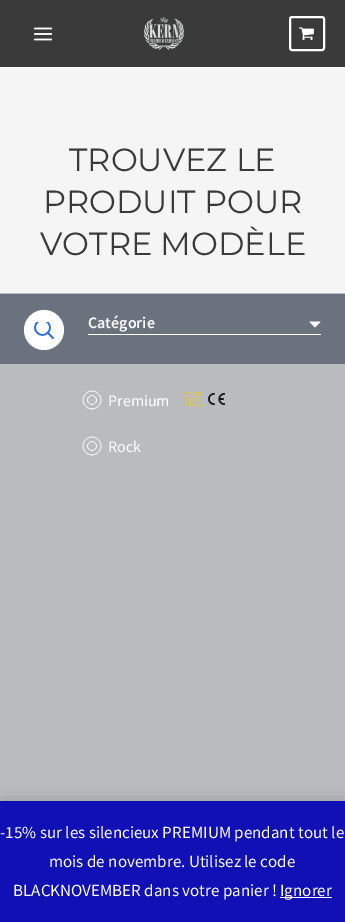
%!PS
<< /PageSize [345 922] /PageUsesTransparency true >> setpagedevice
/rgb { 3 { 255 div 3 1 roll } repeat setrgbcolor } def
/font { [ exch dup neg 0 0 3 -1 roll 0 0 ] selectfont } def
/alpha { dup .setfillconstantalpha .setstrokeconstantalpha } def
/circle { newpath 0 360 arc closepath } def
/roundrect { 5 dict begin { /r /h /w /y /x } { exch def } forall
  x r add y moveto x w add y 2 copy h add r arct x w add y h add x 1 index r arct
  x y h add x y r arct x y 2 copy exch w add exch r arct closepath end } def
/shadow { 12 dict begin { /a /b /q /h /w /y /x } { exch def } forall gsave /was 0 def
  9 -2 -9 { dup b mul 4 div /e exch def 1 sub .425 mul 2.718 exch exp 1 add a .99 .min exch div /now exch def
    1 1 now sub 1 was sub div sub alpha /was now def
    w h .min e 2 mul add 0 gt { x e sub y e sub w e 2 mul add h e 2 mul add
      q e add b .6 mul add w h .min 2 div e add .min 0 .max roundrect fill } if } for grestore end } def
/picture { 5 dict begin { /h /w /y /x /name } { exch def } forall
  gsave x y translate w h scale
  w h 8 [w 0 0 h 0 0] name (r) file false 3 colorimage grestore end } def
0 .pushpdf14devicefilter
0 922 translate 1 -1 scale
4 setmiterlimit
245 245 245 rgb
0 0 345 922 rectfill
58 58 58 rgb
0 0 345 67 rectfill
(img/1.rgb) 33 27 20 14 picture
(img/2.rgb) 144 17 40 33 picture
255 255 255 rgb
2 setlinewidth
290 17 34 33 2 roundrect stroke
(img/3.rgb) 299 27 15 13 picture
186 187 190 rgb
0 293 345 1 rectfill
105 114 125 rgb
0 294 345 70 rectfill
255 255 255 rgb
44 330 20 circle fill
(img/4.rgb) 34 322 20 17 picture
88 334 233 1 rectfill
(img/5.rgb) 309 321 12 7 picture
186 187 190 rgb
0 364 345 437 rectfill
(img/6.rgb) 82 390 20 20 picture
(img/7.rgb) 186 392 39 14 picture
(img/6.rgb) 82 436 20 20 picture
0 0 0 rgb
0 802 345 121 0 8.5 0.2 shadow
16 16 180 rgb
0 801 345 121 rectfill
255 255 255 rgb
280 897 52 1 rectfill
/Montserrat-Thin 32 font
58 58 58 rgb
[
  [(TROUVEZ LE) 69 171]
  [(PRODUIT POUR) 43 213]
  [(VOTRE MODÈLE) 40 255]
] { aload pop moveto show } forall
/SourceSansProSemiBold-SemiBold 16 font
255 255 255 rgb
88 328 moveto (Catégorie) show
/SourceSansPro-Regular 16 font
108 406 moveto (Premium) show
108 452 moveto (Rock) show
/SourceSansPro-Regular 17 font
[
  [(-15% sur les silencieux PREMIUM pendant tout le) 0 838]
  [(mois de novembre. Utilisez le code) 49 867]
  [(BLACKNOVEMBER dans votre panier !) 13 896]
  [(Ignorer) 280 896]
] { aload pop moveto show } forall
.poppdf14devicefilter showpage
